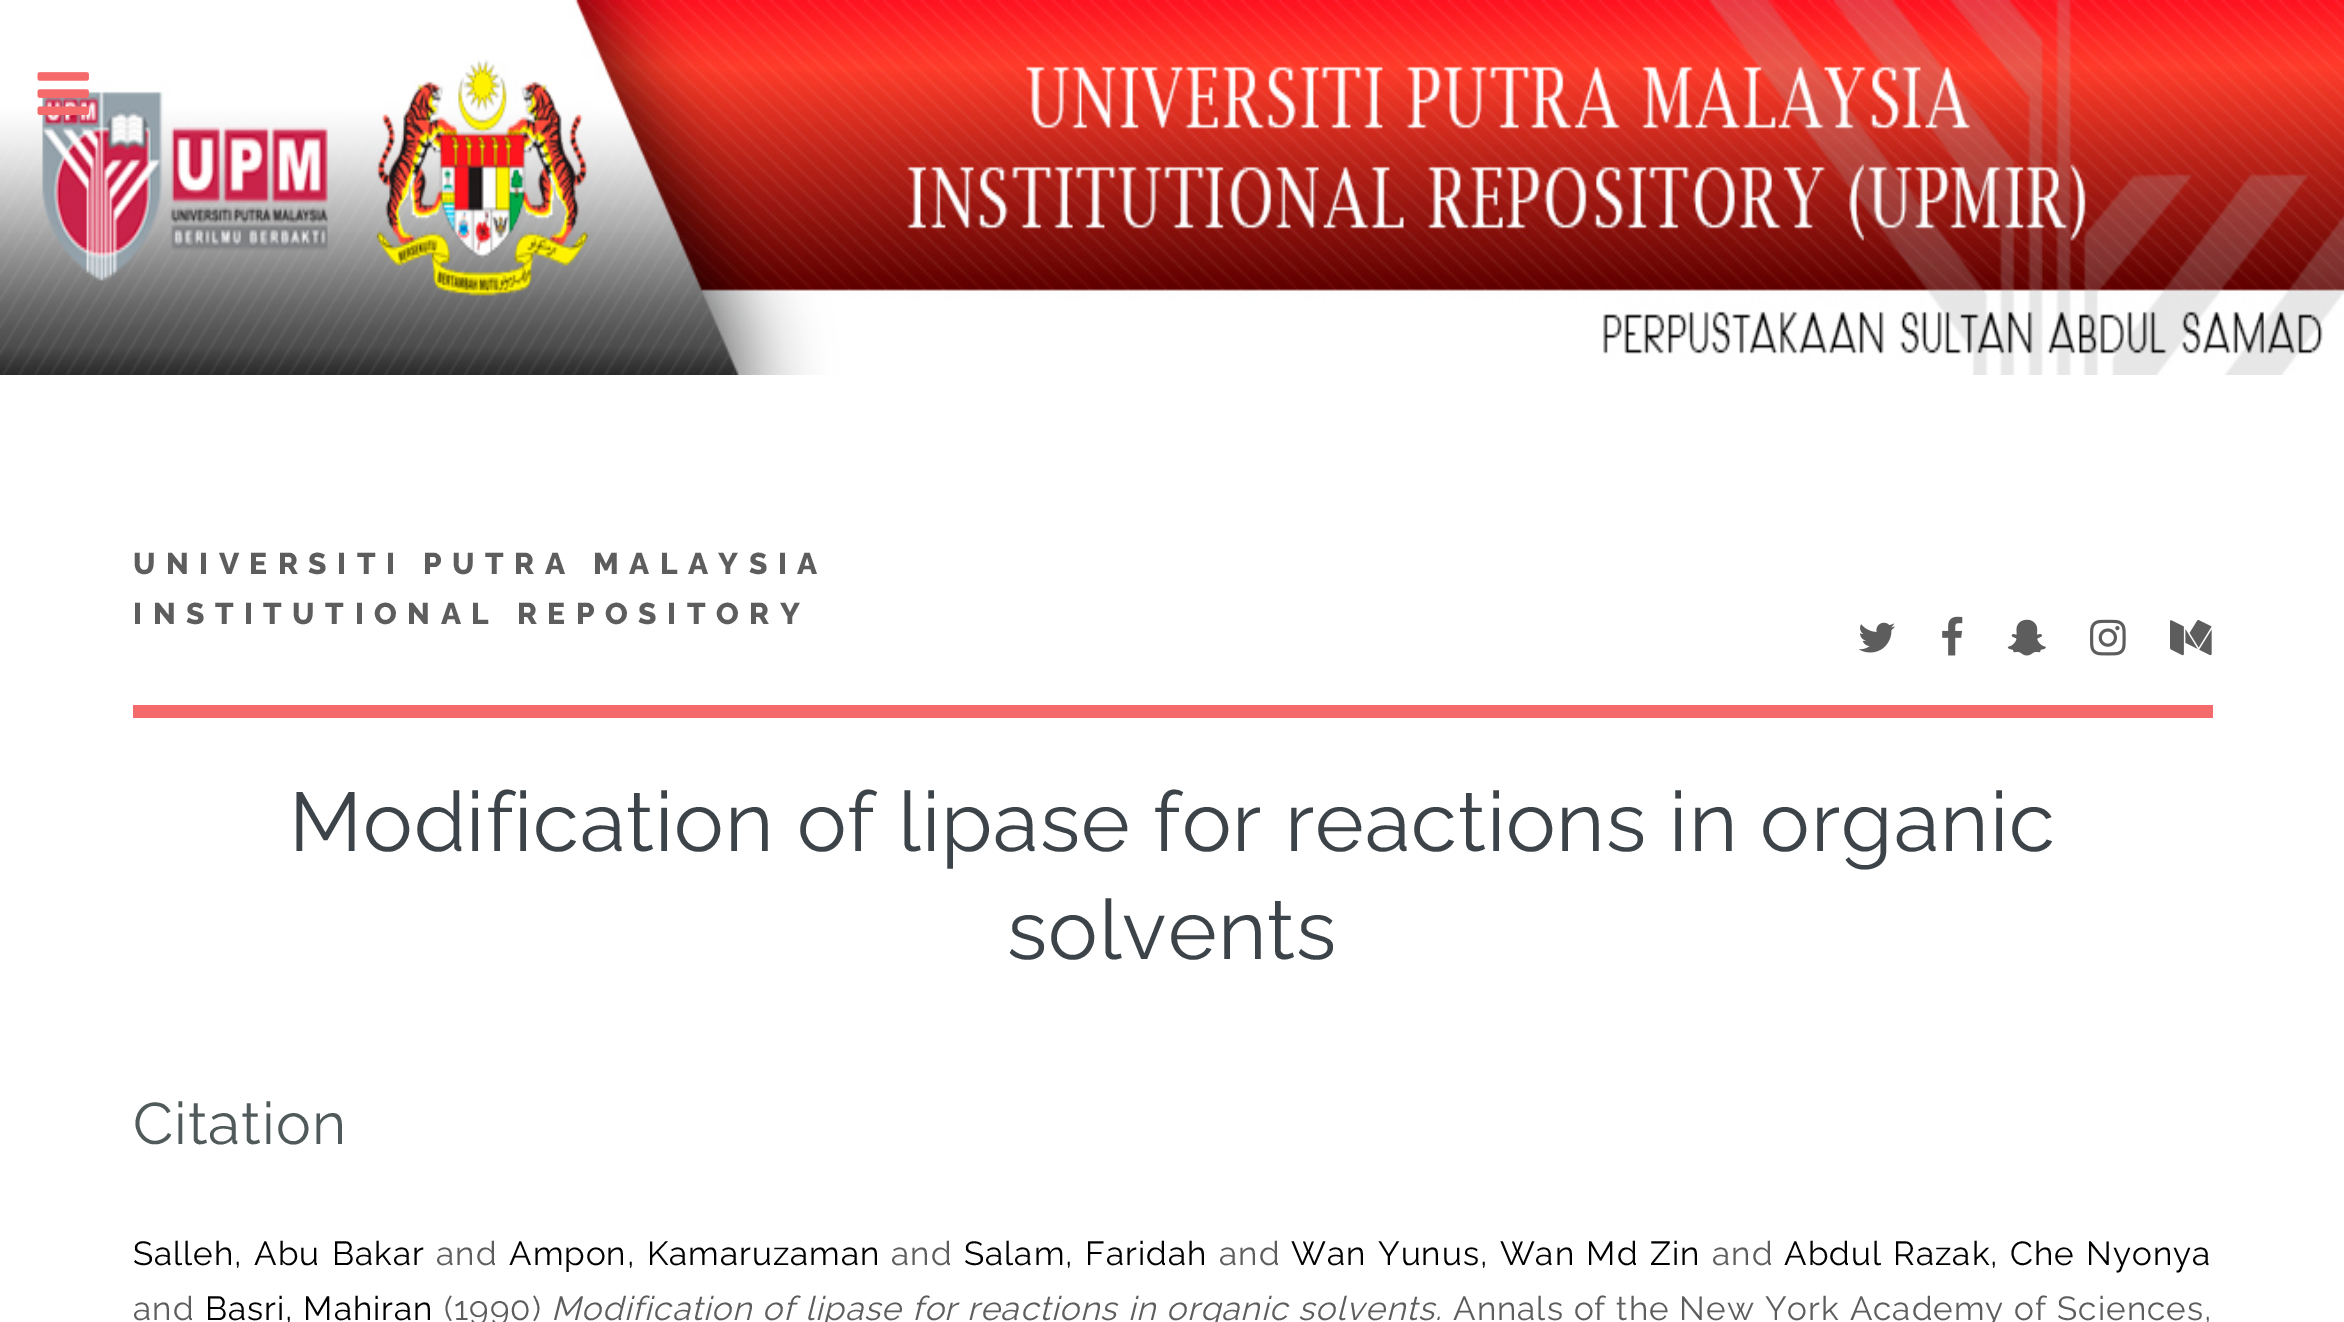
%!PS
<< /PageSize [2344 1322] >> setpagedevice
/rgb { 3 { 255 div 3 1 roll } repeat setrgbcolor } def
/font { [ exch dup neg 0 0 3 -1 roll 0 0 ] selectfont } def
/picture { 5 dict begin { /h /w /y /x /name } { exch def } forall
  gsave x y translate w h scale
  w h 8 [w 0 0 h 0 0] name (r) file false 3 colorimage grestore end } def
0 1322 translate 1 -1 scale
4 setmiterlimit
255 255 255 rgb
0 0 2344 1322 rectfill
(img/1.rgb) 0 0 2344 375 picture
(img/2.rgb) 37 72 52 43 picture
245 106 106 rgb
133 705 2080 13 rectfill
(img/3.rgb) 1858 622 37 31 picture
(img/4.rgb) 1942 616 21 40 picture
(img/5.rgb) 2007 619 39 37 picture
(img/6.rgb) 2090 619 36 37 picture
(img/7.rgb) 2170 620 42 36 picture
/Raleway-ExtraBold 30 font
93 93 93 rgb
133 574 moveto 10.5 0 (UNIVERSITI PUTRA MALAYSIA) ashow
133 624 moveto 10.5 0 (INSTITUTIONAL REPOSITORY) ashow
/Raleway-Regular 83.3 font
61 68 73 rgb
289 851 moveto 1 0 (Modification of lipase for reactions in organic) ashow
1007 959 moveto 1 0 (solvents) ashow
/Raleway-Regular 58.5 font
81 90 90 rgb
133 1144 moveto 1 0 (Citation) ashow
/Raleway-Regular 33.3 font
0 0 0 rgb
133 1265 moveto 2 0 32 1 0 (Salleh, Abu Bakar) awidthshow
93 93 93 rgb
436 1265 moveto 1 0 (and) ashow
0 0 0 rgb
509 1265 moveto 2 0 32 1 0 (Ampon, Kamaruzaman) awidthshow
93 93 93 rgb
891 1265 moveto 1 0 (and) ashow
0 0 0 rgb
964 1265 moveto 2 0 32 1 0 (Salam, Faridah) awidthshow
93 93 93 rgb
1219 1265 moveto 1 0 (and) ashow
0 0 0 rgb
1291 1265 moveto 2 0 32 1 0 (Wan Yunus, Wan Md Zin) awidthshow
93 93 93 rgb
1712 1265 moveto 1 0 (and) ashow
0 0 0 rgb
1784 1265 moveto 2 0 32 1 0 (Abdul Razak, Che Nyonya) awidthshow
93 93 93 rgb
133 1320 moveto 1 0 (and) ashow
0 0 0 rgb
205 1320 moveto 1 0 (Basri, Mahiran) ashow
93 93 93 rgb
444 1320 moveto 1 0 (\(1990\)) ashow
/Raleway-Italic 33.3 font
551 1320 moveto 0.5 0 32 1 0 (Modification of lipase for reactions in organic solvents.) awidthshow
/Raleway-Regular 33.3 font
1453 1320 moveto 0.5 0 32 1 0 (Annals of the New York Academy of Sciences,) awidthshow
showpage
